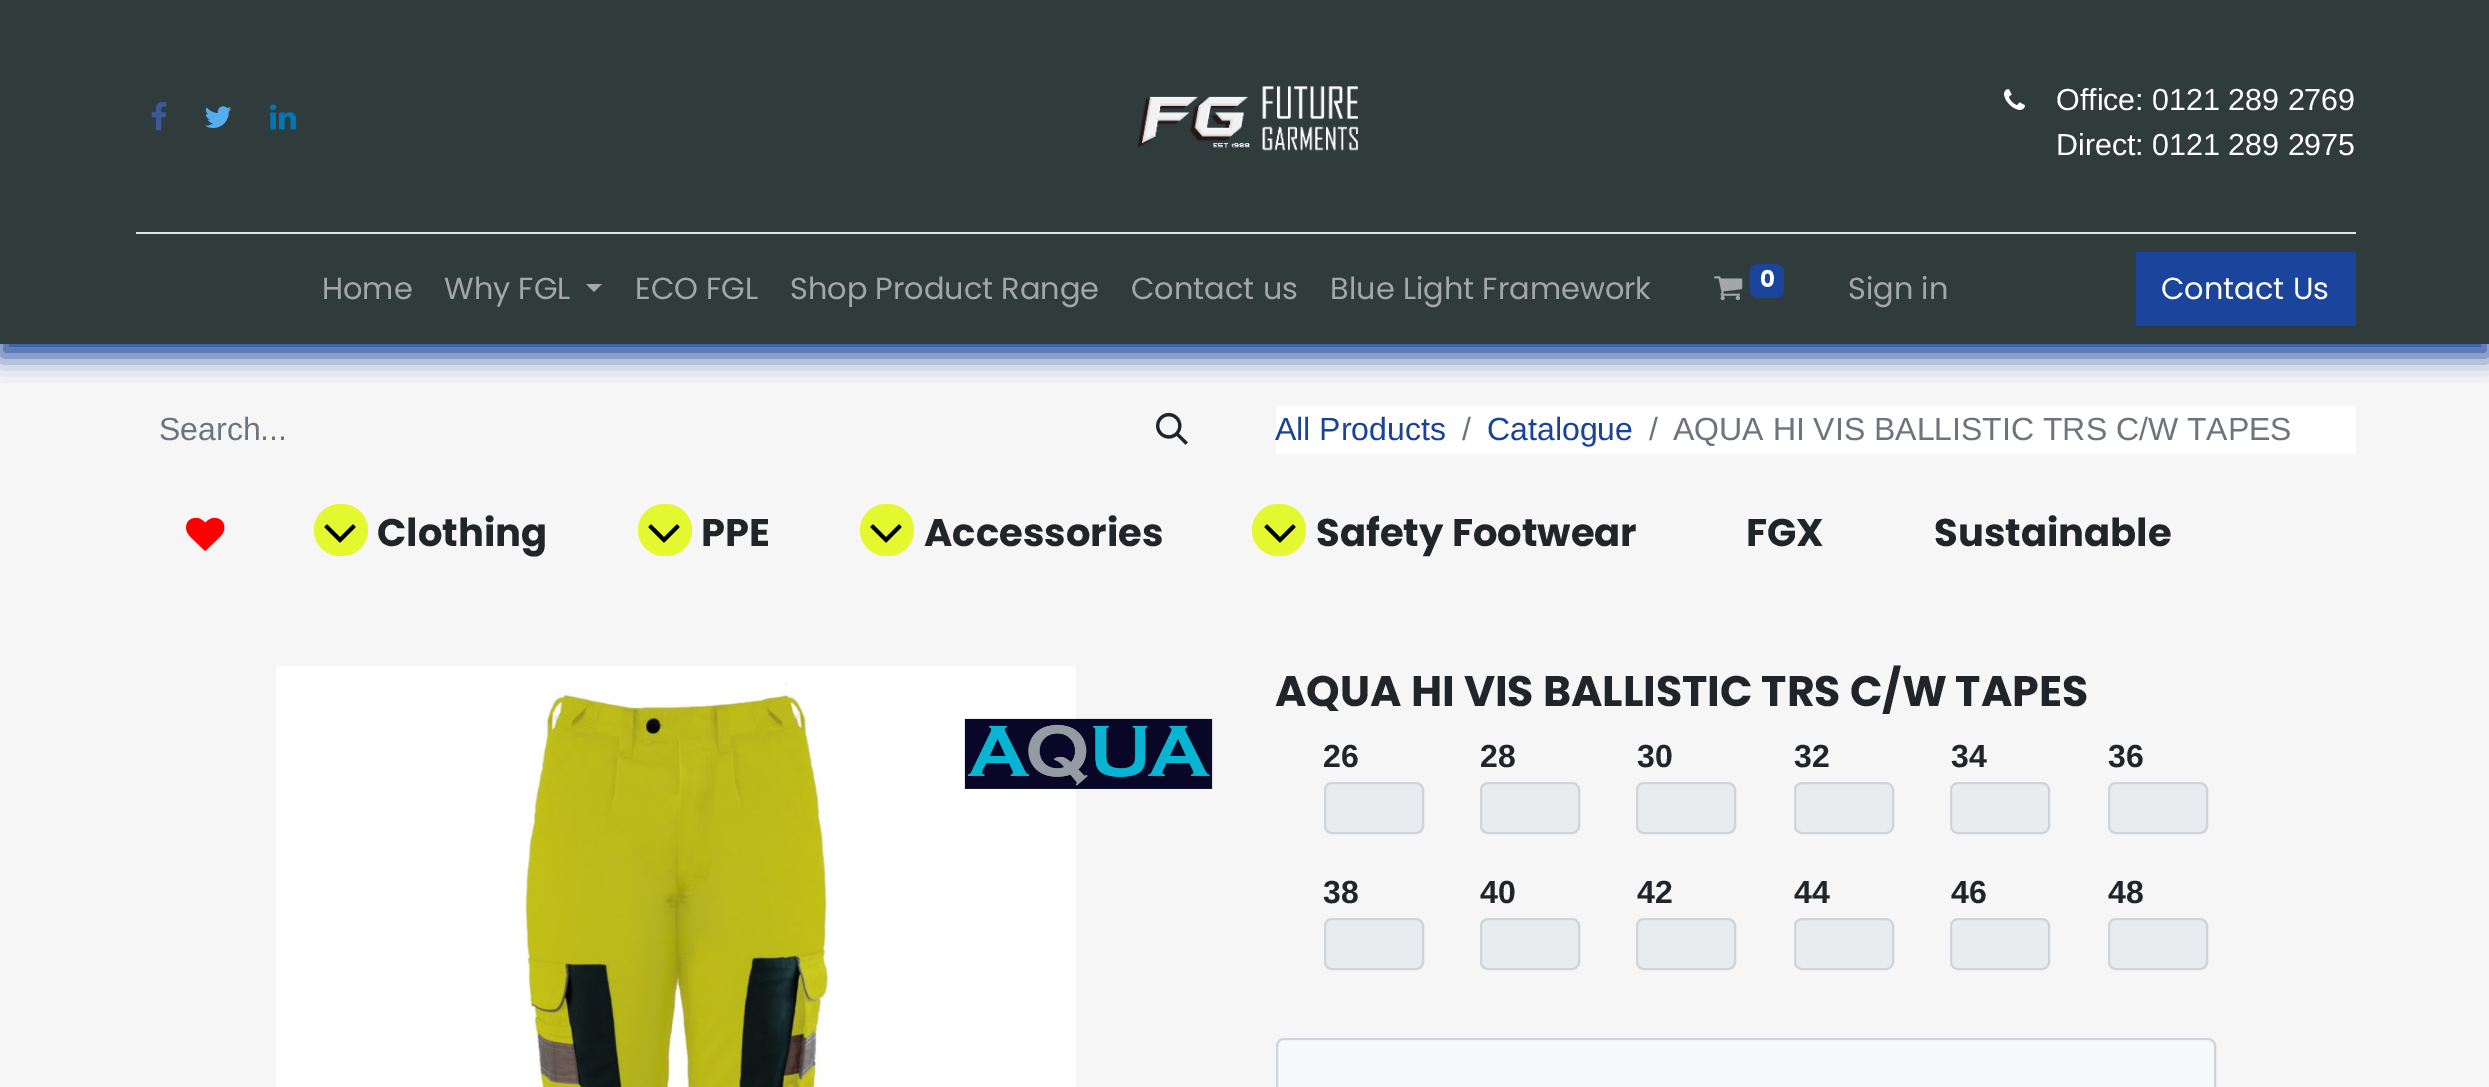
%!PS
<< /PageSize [2489 1087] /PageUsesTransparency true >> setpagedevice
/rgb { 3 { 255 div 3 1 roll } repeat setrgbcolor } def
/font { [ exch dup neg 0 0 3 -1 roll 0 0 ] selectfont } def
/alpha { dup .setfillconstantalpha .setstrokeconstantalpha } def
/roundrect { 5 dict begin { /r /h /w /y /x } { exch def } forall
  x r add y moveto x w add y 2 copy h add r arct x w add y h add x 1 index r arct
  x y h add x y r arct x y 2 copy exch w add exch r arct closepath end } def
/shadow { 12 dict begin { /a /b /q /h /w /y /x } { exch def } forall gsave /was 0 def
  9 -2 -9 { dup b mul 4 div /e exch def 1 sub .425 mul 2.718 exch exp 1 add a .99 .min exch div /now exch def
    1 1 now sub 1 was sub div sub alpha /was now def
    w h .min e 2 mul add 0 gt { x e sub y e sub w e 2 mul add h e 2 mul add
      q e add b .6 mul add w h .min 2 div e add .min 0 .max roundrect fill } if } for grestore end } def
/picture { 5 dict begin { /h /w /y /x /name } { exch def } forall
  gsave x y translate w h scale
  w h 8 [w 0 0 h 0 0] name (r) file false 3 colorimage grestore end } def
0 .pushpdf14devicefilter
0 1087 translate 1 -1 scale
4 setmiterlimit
246 246 246 rgb
0 0 2489 1087 rectfill
27 69 156 rgb
0 12 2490 344 0 12 1 shadow
48 59 60 rgb
0 0 2489 344 rectfill
(img/1.rgb) 151 101 16 30 picture
(img/2.rgb) 205 106 27 22 picture
(img/3.rgb) 270 104 27 26 picture
(img/4.rgb) 1137 86 221 65 picture
(img/5.rgb) 2004 89 21 21 picture
222 226 230 rgb
136 232 2220 2 rectfill
162 167 167 rgb
586 284 moveto 602 284 lineto 594 292 lineto closepath fill
(img/6.rgb) 1714 276 29 25 picture
27 69 156 rgb
1750 264 34 34 8 roundrect fill
2136 252 220 74 rectfill
(img/7.rgb) 1156 412 32 33 picture
255 255 255 rgb
1276 406 1080 48 rectfill
(img/8.rgb) 186 517 39 34 picture
228 248 48 rgb
314 504 54 52 26 roundrect fill
(img/9.rgb) 324 524 32 19 picture
638 504 54 52 26 roundrect fill
(img/9.rgb) 648 524 32 19 picture
860 504 54 52 26 roundrect fill
(img/9.rgb) 870 524 32 19 picture
1252 504 54 52 26 roundrect fill
(img/9.rgb) 1264 524 32 19 picture
(img/10.rgb) 276 666 800 421 picture
(img/11.rgb) 964 718 249 71 picture
233 236 239 rgb
1325 783 98 50 7 roundrect gsave fill grestore
206 212 218 rgb
2 setlinewidth
stroke
233 236 239 rgb
1481 783 98 50 7 roundrect gsave fill grestore
206 212 218 rgb
stroke
233 236 239 rgb
1637 783 98 50 7 roundrect gsave fill grestore
206 212 218 rgb
stroke
233 236 239 rgb
1795 783 98 50 7 roundrect gsave fill grestore
206 212 218 rgb
stroke
233 236 239 rgb
1951 783 98 50 7 roundrect gsave fill grestore
206 212 218 rgb
stroke
233 236 239 rgb
2109 783 98 50 7 roundrect gsave fill grestore
206 212 218 rgb
stroke
233 236 239 rgb
1325 919 98 50 7 roundrect gsave fill grestore
206 212 218 rgb
stroke
233 236 239 rgb
1481 919 98 50 7 roundrect gsave fill grestore
206 212 218 rgb
stroke
233 236 239 rgb
1637 919 98 50 7 roundrect gsave fill grestore
206 212 218 rgb
stroke
233 236 239 rgb
1795 919 98 50 7 roundrect gsave fill grestore
206 212 218 rgb
stroke
233 236 239 rgb
1951 919 98 50 7 roundrect gsave fill grestore
206 212 218 rgb
stroke
233 236 239 rgb
2109 919 98 50 7 roundrect gsave fill grestore
206 212 218 rgb
stroke
248 249 250 rgb
1284 1040 moveto 2208 1040 lineto 2211.5 1040 2214 1042.5 2214 1046 curveto 2214 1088 lineto 1278 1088 lineto 1278 1046 lineto 1278 1042.5 1280.5 1040 1284 1040 curveto closepath fill
206 212 218 rgb
1277 1039 938 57 7 roundrect stroke
/LiberationSans-Regular 30.4 font
255 255 255 rgb
2056 110 moveto (Office: 0121 289 2769) show
2056 155 moveto (Direct: 0121 289 2975) show
/Poppins-Regular 30.4 font
162 167 167 rgb
[
  [(Home) 322 299]
  [(Why FGL) 444 299]
  [(ECO FGL) 635 299]
  [(Shop Product Range) 790 299]
  [(Contact us) 1131 299]
  [(Blue Light Framework) 1330 299]
] { aload pop moveto show } forall
/Poppins-Bold 23 font
255 255 255 rgb
1760 287 moveto (0) show
/Poppins-Regular 30.4 font
162 167 167 rgb
1848 299 moveto (Sign in) show
255 255 255 rgb
2161 299 moveto (Contact Us) show
/LiberationSans-Regular 32 font
108 117 125 rgb
159 440 moveto (Search...) show
26 67 152 rgb
1275 440 moveto (All Products) show
108 117 125 rgb
1462 440 moveto (/) show
26 67 152 rgb
1487 440 moveto (Catalogue) show
108 117 125 rgb
1649 440 moveto (/) show
1673 440 moveto (AQUA HI VIS BALLISTIC TRS C/W TAPES) show
/Poppins-Bold 38.5 font
33 37 41 rgb
[
  [(Clothing) 377 546]
  [(PPE) 701 546]
  [(Accessories) 924 546]
  [(Safety Footwear) 1316 546]
  [(FGX) 1746 546]
  [(Sustainable) 1934 546]
] { aload pop moveto show } forall
/Poppins-Bold 42.7 font
1275 706 moveto (AQUA HI VIS BALLISTIC TRS C/W TAPES) show
/LiberationSans-Bold 32 font
[
  [(26) 1323 767]
  [(28) 1480 767]
  [(30) 1637 767]
  [(32) 1794 767]
  [(34) 1951 767]
  [(36) 2108 767]
  [(38) 1323 903]
  [(40) 1480 903]
  [(42) 1637 903]
  [(44) 1794 903]
  [(46) 1951 903]
  [(48) 2108 903]
] { aload pop moveto show } forall
.poppdf14devicefilter showpage
